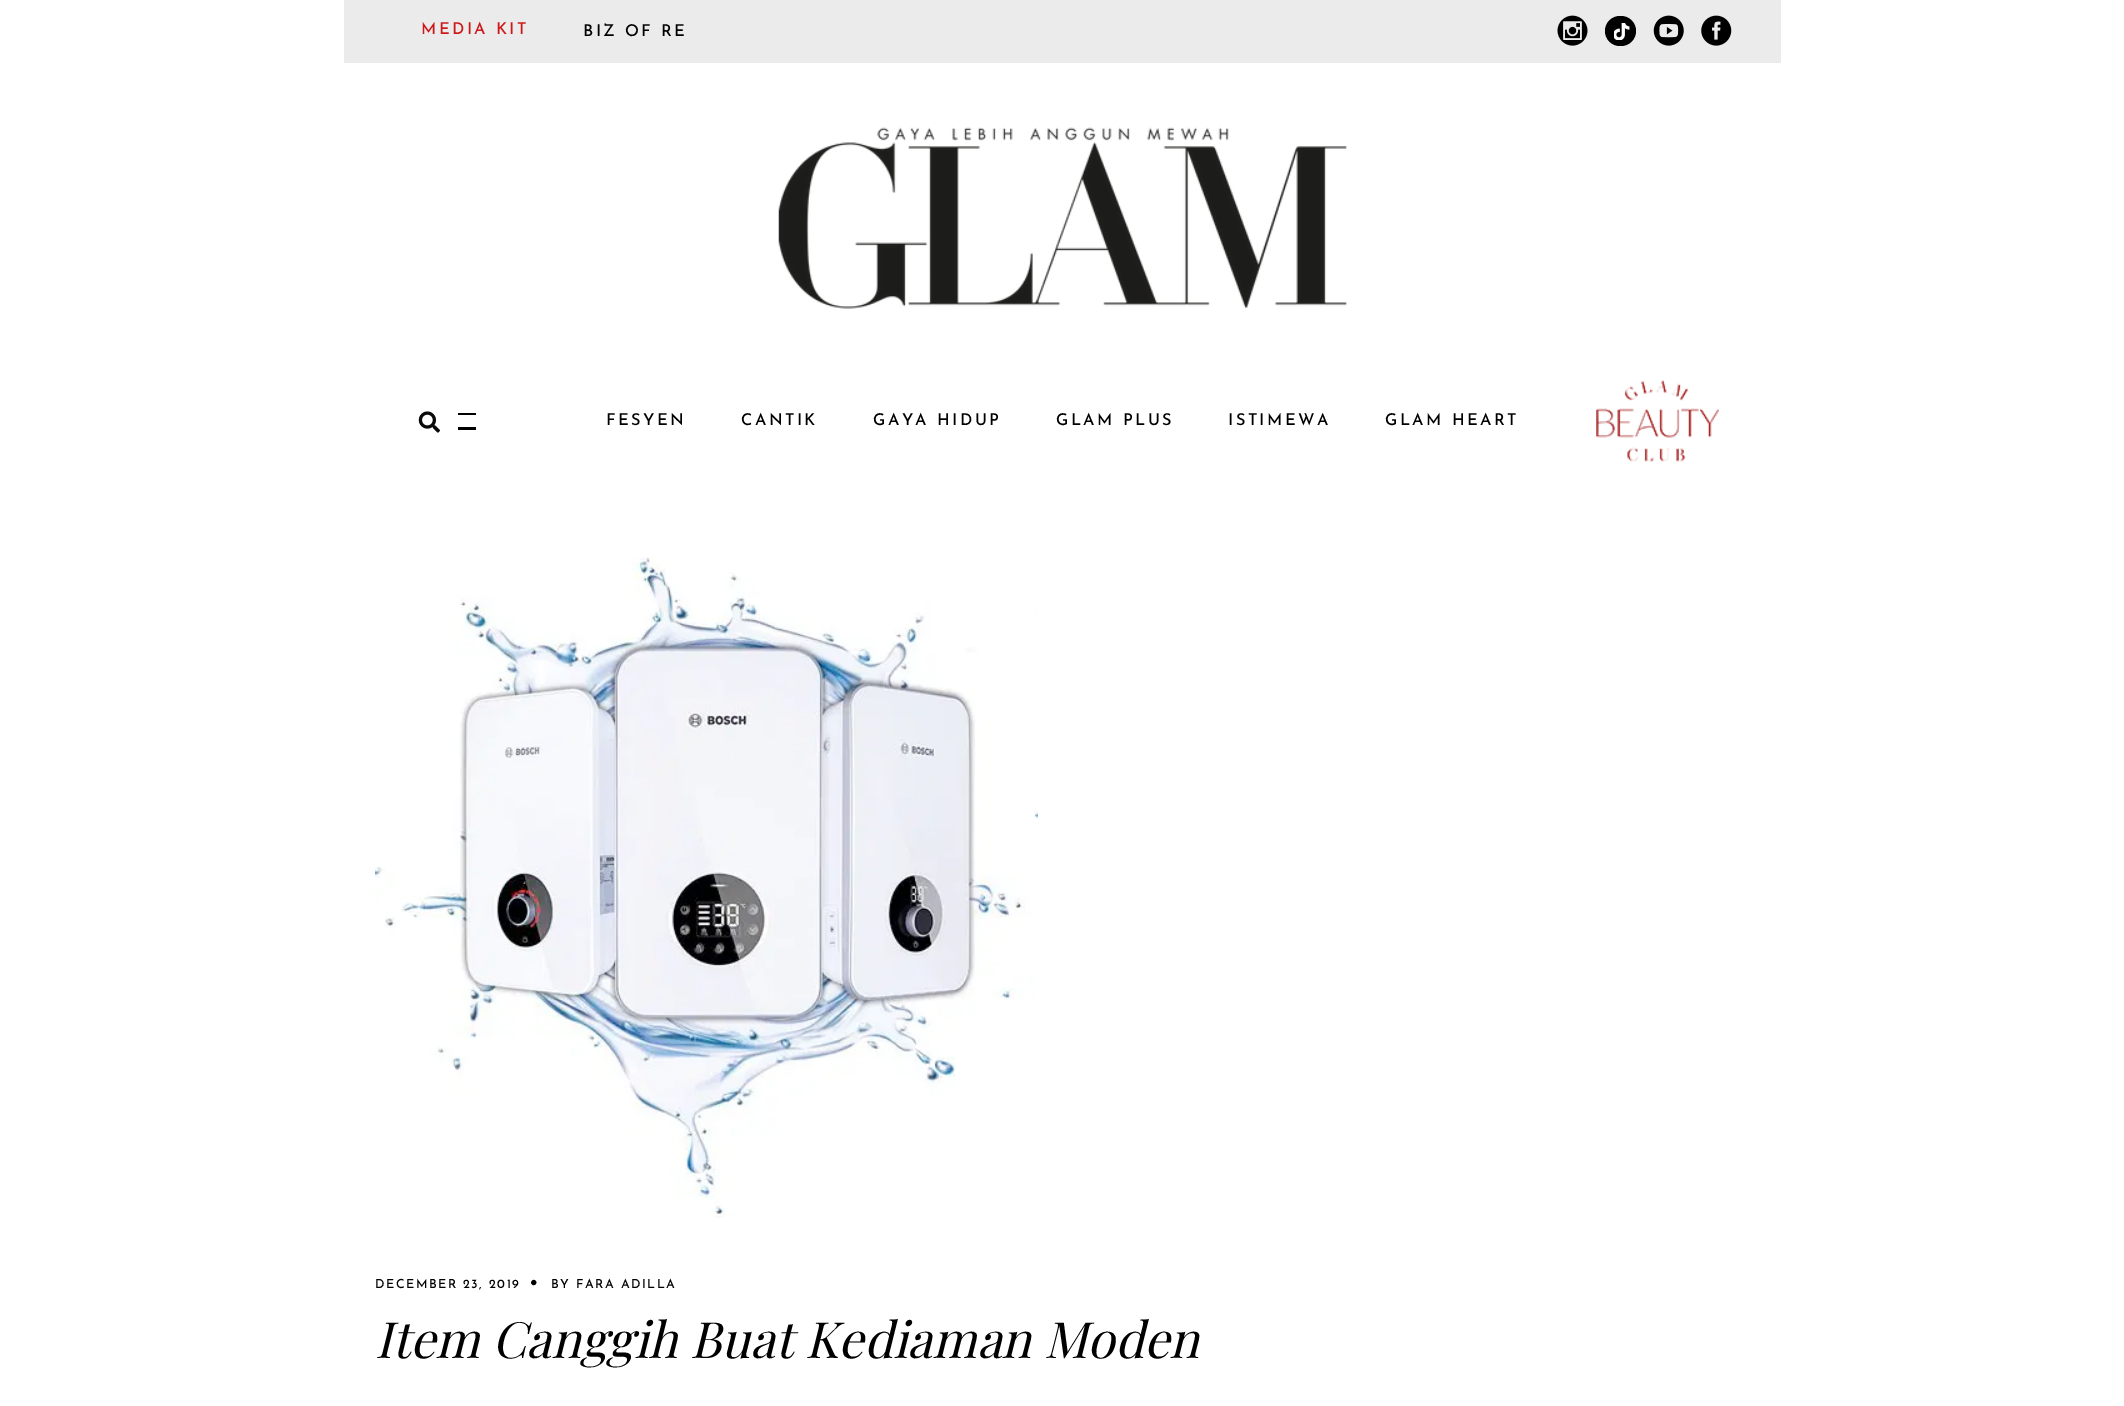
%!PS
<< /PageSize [2124 1406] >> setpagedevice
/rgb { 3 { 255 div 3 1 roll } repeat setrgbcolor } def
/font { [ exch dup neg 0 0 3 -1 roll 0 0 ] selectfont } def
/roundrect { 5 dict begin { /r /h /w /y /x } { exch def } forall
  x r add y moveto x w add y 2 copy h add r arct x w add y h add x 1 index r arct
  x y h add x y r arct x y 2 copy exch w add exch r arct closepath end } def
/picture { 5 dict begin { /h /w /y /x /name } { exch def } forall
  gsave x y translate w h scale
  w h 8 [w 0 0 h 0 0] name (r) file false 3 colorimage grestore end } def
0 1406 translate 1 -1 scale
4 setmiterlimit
255 255 255 rgb
0 0 2124 1406 rectfill
235 235 235 rgb
344 0 1437 63 rectfill
(img/1.rgb) 1557 15 31 31 picture
0 0 0 rgb
1605 16 31 30 15 roundrect fill
(img/2.rgb) 1614 23 16 17 picture
(img/3.rgb) 1653 15 31 31 picture
(img/4.rgb) 1701 15 31 31 picture
(img/5.rgb) 778 127 569 182 picture
(img/6.rgb) 418 411 22 22 picture
(img/7.rgb) 458 413 18 17 picture
(img/8.rgb) 1596 380 123 82 picture
(img/9.rgb) 375 557 663 661 picture
/JosefinSans-Medium 16.25 font
205 23 25 rgb
421 34 moveto 2.5 0 (MEDIA KIT) ashow
0 0 0 rgb
583 36 moveto 2.5 0 (BIZ OF RE) ashow
606 425 moveto 2.5 0 (FESYEN) ashow
741 425 moveto 2.5 0 (CANTIK) ashow
873 425 moveto 2.5 0 (GAYA HIDUP) ashow
1056 425 moveto 2.5 0 (GLAM PLUS) ashow
1228 425 moveto 2.5 0 (ISTIMEWA) ashow
1385 425 moveto 2.5 0 (GLAM HEART) ashow
/JosefinSans-Medium 12.5 font
375 1288 moveto 1.5 0 (DECEMBER 23, 2019) ashow
/LiberationSerif-Regular 12.5 font
530 1286 moveto 1.5 0 (●) ashow
/JosefinSans-Medium 12.5 font
551 1288 moveto 1.5 0 (BY FARA ADILLA) ashow
/PlayfairDisplay-Italic 50 font
375 1358 moveto (Item Canggih Buat Kediaman Moden) show
showpage
